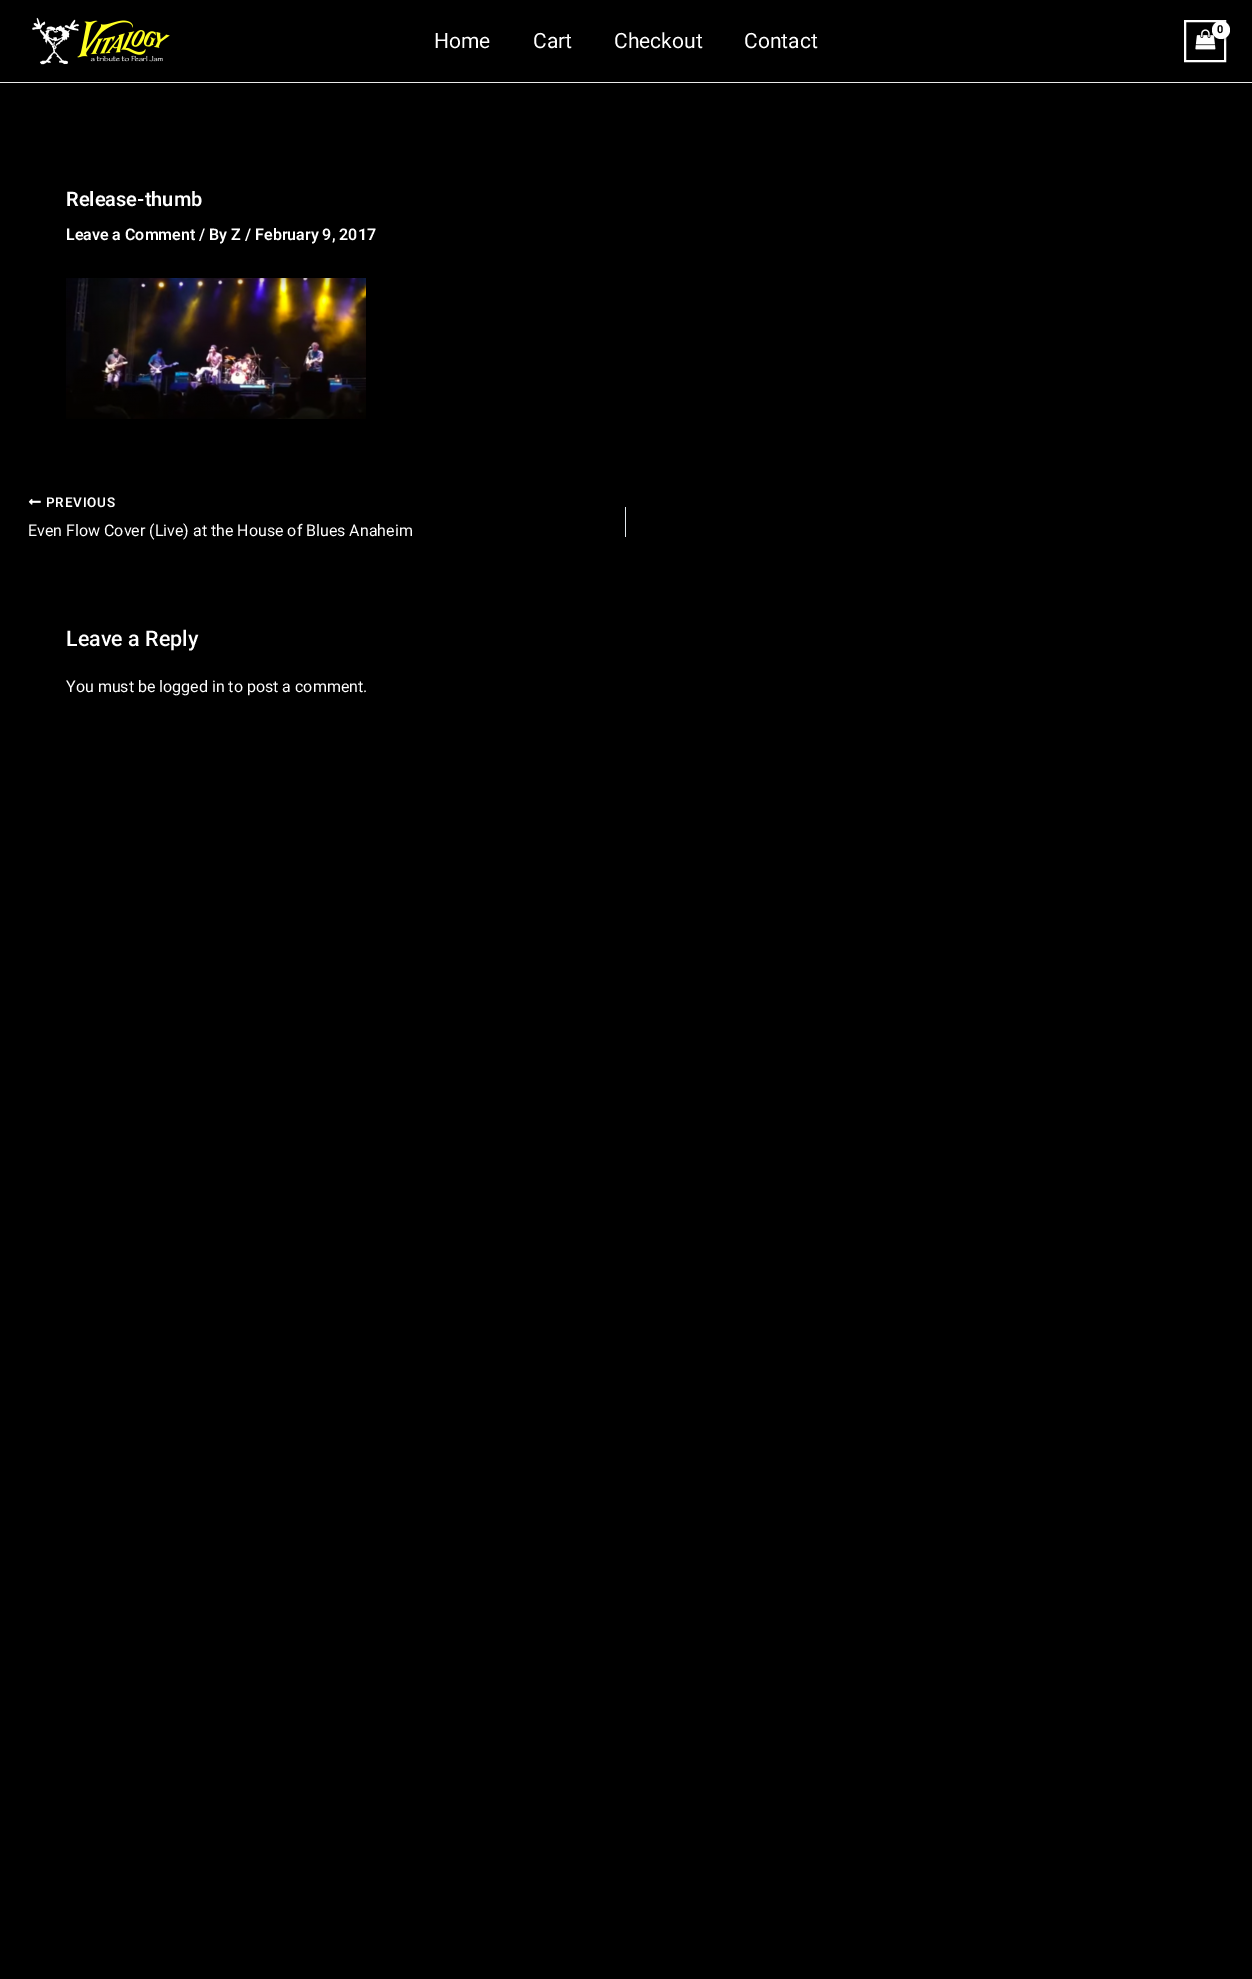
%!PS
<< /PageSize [1252 1979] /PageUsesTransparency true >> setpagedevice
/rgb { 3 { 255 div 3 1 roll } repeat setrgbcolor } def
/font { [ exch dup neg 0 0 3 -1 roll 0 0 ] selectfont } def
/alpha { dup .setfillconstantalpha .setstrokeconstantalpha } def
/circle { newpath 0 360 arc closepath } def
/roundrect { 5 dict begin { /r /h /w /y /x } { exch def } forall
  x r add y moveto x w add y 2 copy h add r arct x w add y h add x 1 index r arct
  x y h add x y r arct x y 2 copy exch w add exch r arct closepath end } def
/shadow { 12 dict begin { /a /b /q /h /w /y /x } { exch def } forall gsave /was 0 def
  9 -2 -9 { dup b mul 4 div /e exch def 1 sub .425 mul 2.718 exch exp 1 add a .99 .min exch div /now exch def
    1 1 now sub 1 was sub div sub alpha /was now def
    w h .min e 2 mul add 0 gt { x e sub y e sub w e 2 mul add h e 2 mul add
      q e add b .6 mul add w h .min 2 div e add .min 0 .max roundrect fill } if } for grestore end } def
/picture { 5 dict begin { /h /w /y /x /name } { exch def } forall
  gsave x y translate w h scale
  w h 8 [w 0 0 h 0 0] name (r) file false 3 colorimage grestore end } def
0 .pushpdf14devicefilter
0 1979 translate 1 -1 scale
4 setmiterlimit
0 0 0 rgb
0 0 1252 1979 rectfill
234 234 234 rgb
0 82 1252 1 rectfill
(img/1.rgb) 32 17 138 48 picture
255 255 255 rgb
2 setlinewidth
1185 21 40 40 rectstroke
(img/2.rgb) 1195 29 21 21 picture
0 0 0 rgb
1213 22 18 18 9 1.5 0.3 shadow
255 255 255 rgb
1221 30 9 circle fill
(img/3.rgb) 66 278 300 141 picture
(img/4.rgb) 28 498 13 7 picture
225 232 237 rgb
625 507 1 30 rectfill
/Roboto-Bold 11 font
0 0 0 rgb
1217 33 moveto (0) show
/Roboto-Regular 21 font
255 255 255 rgb
[
  [(Home) 434 48]
  [(Cart) 533 48]
  [(Checkout) 614 48]
  [(Contact) 744 48]
] { aload pop moveto show } forall
/Roboto-SemiBold 20 font
66 206 moveto (Release-thumb) show
/Roboto-SemiBold 16 font
66 240 moveto (Leave a Comment / By Z / February 9, 2017) show
/Roboto-SemiBold 13.5 font
46 507 moveto 0.75 0 (PREVIOUS) ashow
/Roboto-Regular 16 font
28 536 moveto (Even Flow Cover \(Live\) at the House of Blues Anaheim) show
/Roboto-Medium 21.5 font
66 646 moveto (Leave a Reply) show
/Roboto-Regular 16 font
66 692 moveto (You must be logged in to post a comment.) show
.poppdf14devicefilter showpage
